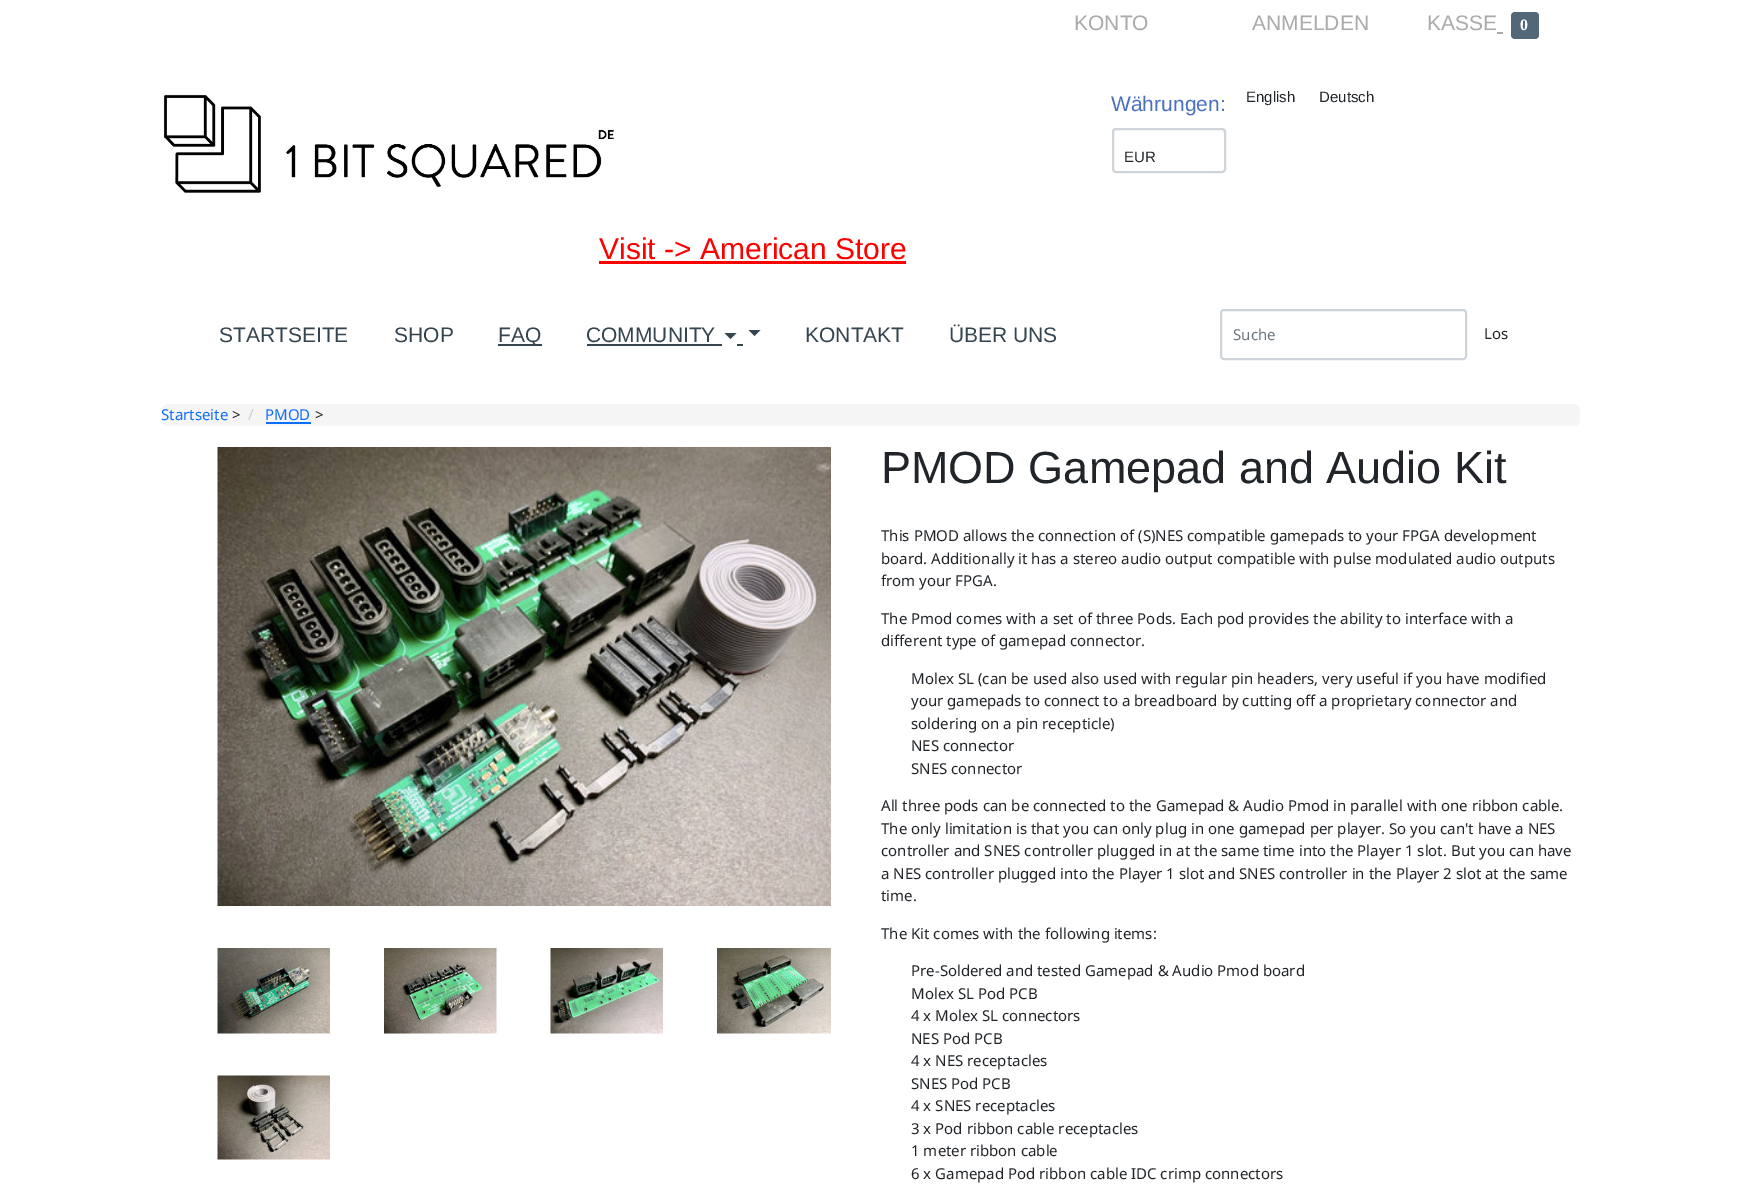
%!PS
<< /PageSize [1739 1184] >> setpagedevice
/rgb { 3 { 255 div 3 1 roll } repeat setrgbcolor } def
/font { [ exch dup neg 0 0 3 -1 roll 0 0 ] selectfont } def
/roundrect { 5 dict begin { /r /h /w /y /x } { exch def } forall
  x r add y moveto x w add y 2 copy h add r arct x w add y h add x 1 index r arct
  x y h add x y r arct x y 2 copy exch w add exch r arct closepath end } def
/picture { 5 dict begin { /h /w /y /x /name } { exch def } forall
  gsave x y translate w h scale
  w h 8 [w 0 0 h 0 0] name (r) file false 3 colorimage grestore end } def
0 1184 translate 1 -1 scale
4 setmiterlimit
255 255 255 rgb
0 0 1739 1184 rectfill
82 104 121 rgb
1511 12 28 27 4 roundrect fill
170 170 170 rgb
1497 32 6 2 rectfill
(img/1.rgb) 163 94 451 99 picture
236 236 236 rgb
1115 130 moveto 1222 130 lineto 1223 130 1224 132 1224 133 curveto 1224 131 lineto 1224 130 1223 129 1222 129 curveto 1115 129 lineto 1114 129 1113 130 1113 131 curveto 1113 133 lineto 1113 132 1114 130 1115 130 curveto closepath fill
206 212 218 rgb
2 setlinewidth
1113 129 112 43 3 roundrect stroke
[
  [599 261 307 3 255 0 0]
  [498 344 44 2 53 69 79]
  [587 344 135 2 53 69 79]
] { aload pop rgb rectfill } forall
724.5 333 moveto 736.5 333 lineto 730.5 339 lineto closepath fill
748.5 330 moveto 760.5 330 lineto 754.5 336 lineto closepath fill
737 344 6 2 rectfill
206 212 218 rgb
1221 310 245 49 3 roundrect stroke
245 245 245 rgb
162 404 1418 22 6 roundrect fill
13 110 253 rgb
266 422 45 2 rectfill
(img/2.rgb) 217 447 614 459 picture
(img/3.rgb) 217 948 113 86 picture
(img/4.rgb) 384 948 113 86 picture
(img/5.rgb) 550 948 113 86 picture
(img/6.rgb) 717 948 114 86 picture
(img/7.rgb) 217 1075 113 85 picture
/LiberationSans-Regular 21 font
170 170 170 rgb
[
  [(KONTO) 1074 30]
  [(ANMELDEN) 1252 30]
  [(KASSE) 1427 30]
] { aload pop moveto show } forall
/LiberationSerif-Bold 16 font
255 255 255 rgb
1520 30 moveto (0) show
/LiberationSans-Regular 21 font
73 111 192 rgb
1111 111 moveto (Währungen:) show
/LiberationSans-Regular 15 font
33 37 41 rgb
[
  [(EUR) 1124 162]
  [(English) 1246 102]
  [(Deutsch) 1319 102]
] { aload pop moveto show } forall
/LiberationSans-Regular 30 font
255 0 0 rgb
599 259 moveto (Visit -> American Store) show
/LiberationSans-Regular 21 font
53 69 79 rgb
[
  [(STARTSEITE) 219 342]
  [(SHOP) 394 342]
  [(FAQ) 498 342]
  [(COMMUNITY) 586 342]
  [(KONTAKT) 805 342]
  [(ÜBER UNS) 949 342]
] { aload pop moveto show } forall
/NotoSans-Regular 15 font
108 117 125 rgb
1233 340 moveto (Suche) show
33 37 41 rgb
1484 339 moveto (Los) show
13 110 253 rgb
161 420 moveto (Startseite) show
33 37 41 rgb
232 420 moveto (>) show
204 204 204 rgb
248 420 moveto (/) show
13 110 253 rgb
265 420 moveto (PMOD) show
33 37 41 rgb
315 420 moveto (>) show
/LiberationSans-Regular 45 font
881 483 moveto (PMOD Gamepad and Audio Kit) show
/NotoSans-Regular 15 font
[
  [(This PMOD allows the connection of \(S\)NES compatible gamepads to your FPGA development) 881 541]
  [(board. Additionally it has a stereo audio output compatible with pulse modulated audio outputs) 881 564]
  [(from your FPGA.) 881 586]
  [(The Pmod comes with a set of three Pods. Each pod provides the ability to interface with a) 881 624]
  [(different type of gamepad connector.) 881 646]
  [(Molex SL \(can be used also used with regular pin headers, very useful if you have modified) 911 684]
  [(your gamepads to connect to a breadboard by cutting off a proprietary connector and) 911 706]
  [(soldering on a pin recepticle\)) 911 729]
  [(NES connector) 911 751]
  [(SNES connector) 911 774]
  [(All three pods can be connected to the Gamepad & Audio Pmod in parallel with one ribbon cable.) 881 811]
  [(The only limitation is that you can only plug in one gamepad per player. So you can't have a NES) 881 834]
  [(controller and SNES controller plugged in at the same time into the Player 1 slot. But you can have) 881 856]
  [(a NES controller plugged into the Player 1 slot and SNES controller in the Player 2 slot at the same) 881 879]
  [(time.) 881 901]
  [(The Kit comes with the following items:) 881 939]
  [(Pre-Soldered and tested Gamepad & Audio Pmod board) 911 976]
  [(Molex SL Pod PCB) 911 999]
  [(4 x Molex SL connectors) 911 1021]
  [(NES Pod PCB) 911 1044]
  [(4 x NES receptacles) 911 1066]
  [(SNES Pod PCB) 911 1089]
  [(4 x SNES receptacles) 911 1111]
  [(3 x Pod ribbon cable receptacles) 911 1134]
  [(1 meter ribbon cable) 911 1156]
  [(6 x Gamepad Pod ribbon cable IDC crimp connectors) 911 1179]
] { aload pop moveto show } forall
showpage
